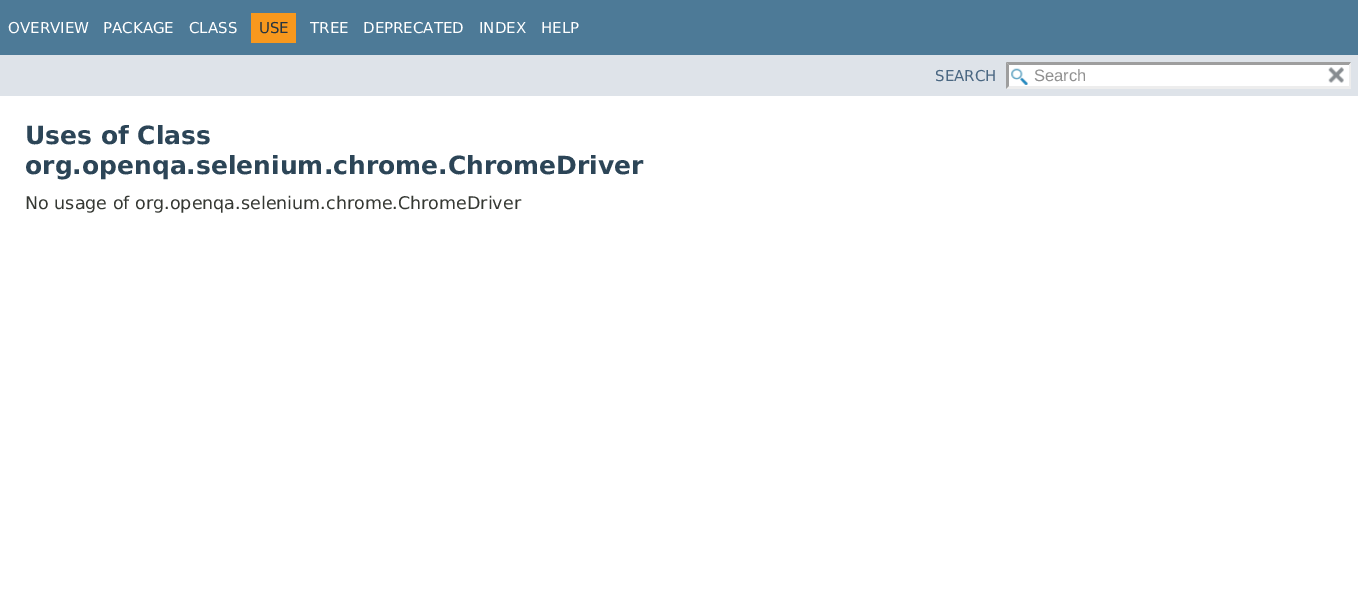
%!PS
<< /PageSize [1358 616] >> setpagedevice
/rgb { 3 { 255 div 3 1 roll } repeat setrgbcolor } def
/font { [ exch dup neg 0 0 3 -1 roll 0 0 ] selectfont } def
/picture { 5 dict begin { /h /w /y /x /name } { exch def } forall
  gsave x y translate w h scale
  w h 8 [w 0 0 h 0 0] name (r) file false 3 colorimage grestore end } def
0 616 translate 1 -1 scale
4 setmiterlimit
255 255 255 rgb
0 0 1358 616 rectfill
[
  [0 0 1358 55 77 122 151]
  [251 13 45 30 248 152 29]
  [0 55 1358 41 222 227 233]
  [1006 63 345 26 255 255 255]
] { aload pop rgb rectfill } forall
(img/1.rgb) 1011 68 17 17 picture
158 158 158 rgb
1006 62 moveto 1351 62 lineto 1349 65 lineto 1009 65 lineto closepath fill
237 237 237 rgb
1351 62.5 moveto 1351 89 lineto 1349 86 lineto 1349 65 lineto closepath fill
1351 89 moveto 1006 89 lineto 1009 86 lineto 1349 86 lineto closepath fill
158 158 158 rgb
1006 89 moveto 1006 62.5 lineto 1009 65 lineto 1009 86 lineto closepath fill
(img/2.rgb) 1328 67 16 16 picture
/DejaVuSans-Regular 15 font
255 255 255 rgb
[
  [(OVERVIEW) 8 33]
  [(PACKAGE) 103 33]
  [(CLASS) 189 33]
] { aload pop moveto show } forall
37 52 65 rgb
259 33 moveto (USE) show
255 255 255 rgb
[
  [(TREE) 310 33]
  [(DEPRECATED) 363 33]
  [(INDEX) 479 33]
  [(HELP) 541 33]
] { aload pop moveto show } forall
74 103 130 rgb
935 81 moveto (SEARCH) show
/LiberationSans-Regular 16.5 font
144 144 144 rgb
1034 81 moveto (Search) show
/DejaVuSans-Bold 25 font
44 69 87 rgb
25 144 moveto (Uses of Class) show
25 174 moveto (org.openqa.selenium.chrome.ChromeDriver) show
/DejaVuSans-Regular 17.5 font
53 56 51 rgb
25 209 moveto (No usage of org.openqa.selenium.chrome.ChromeDriver) show
showpage
